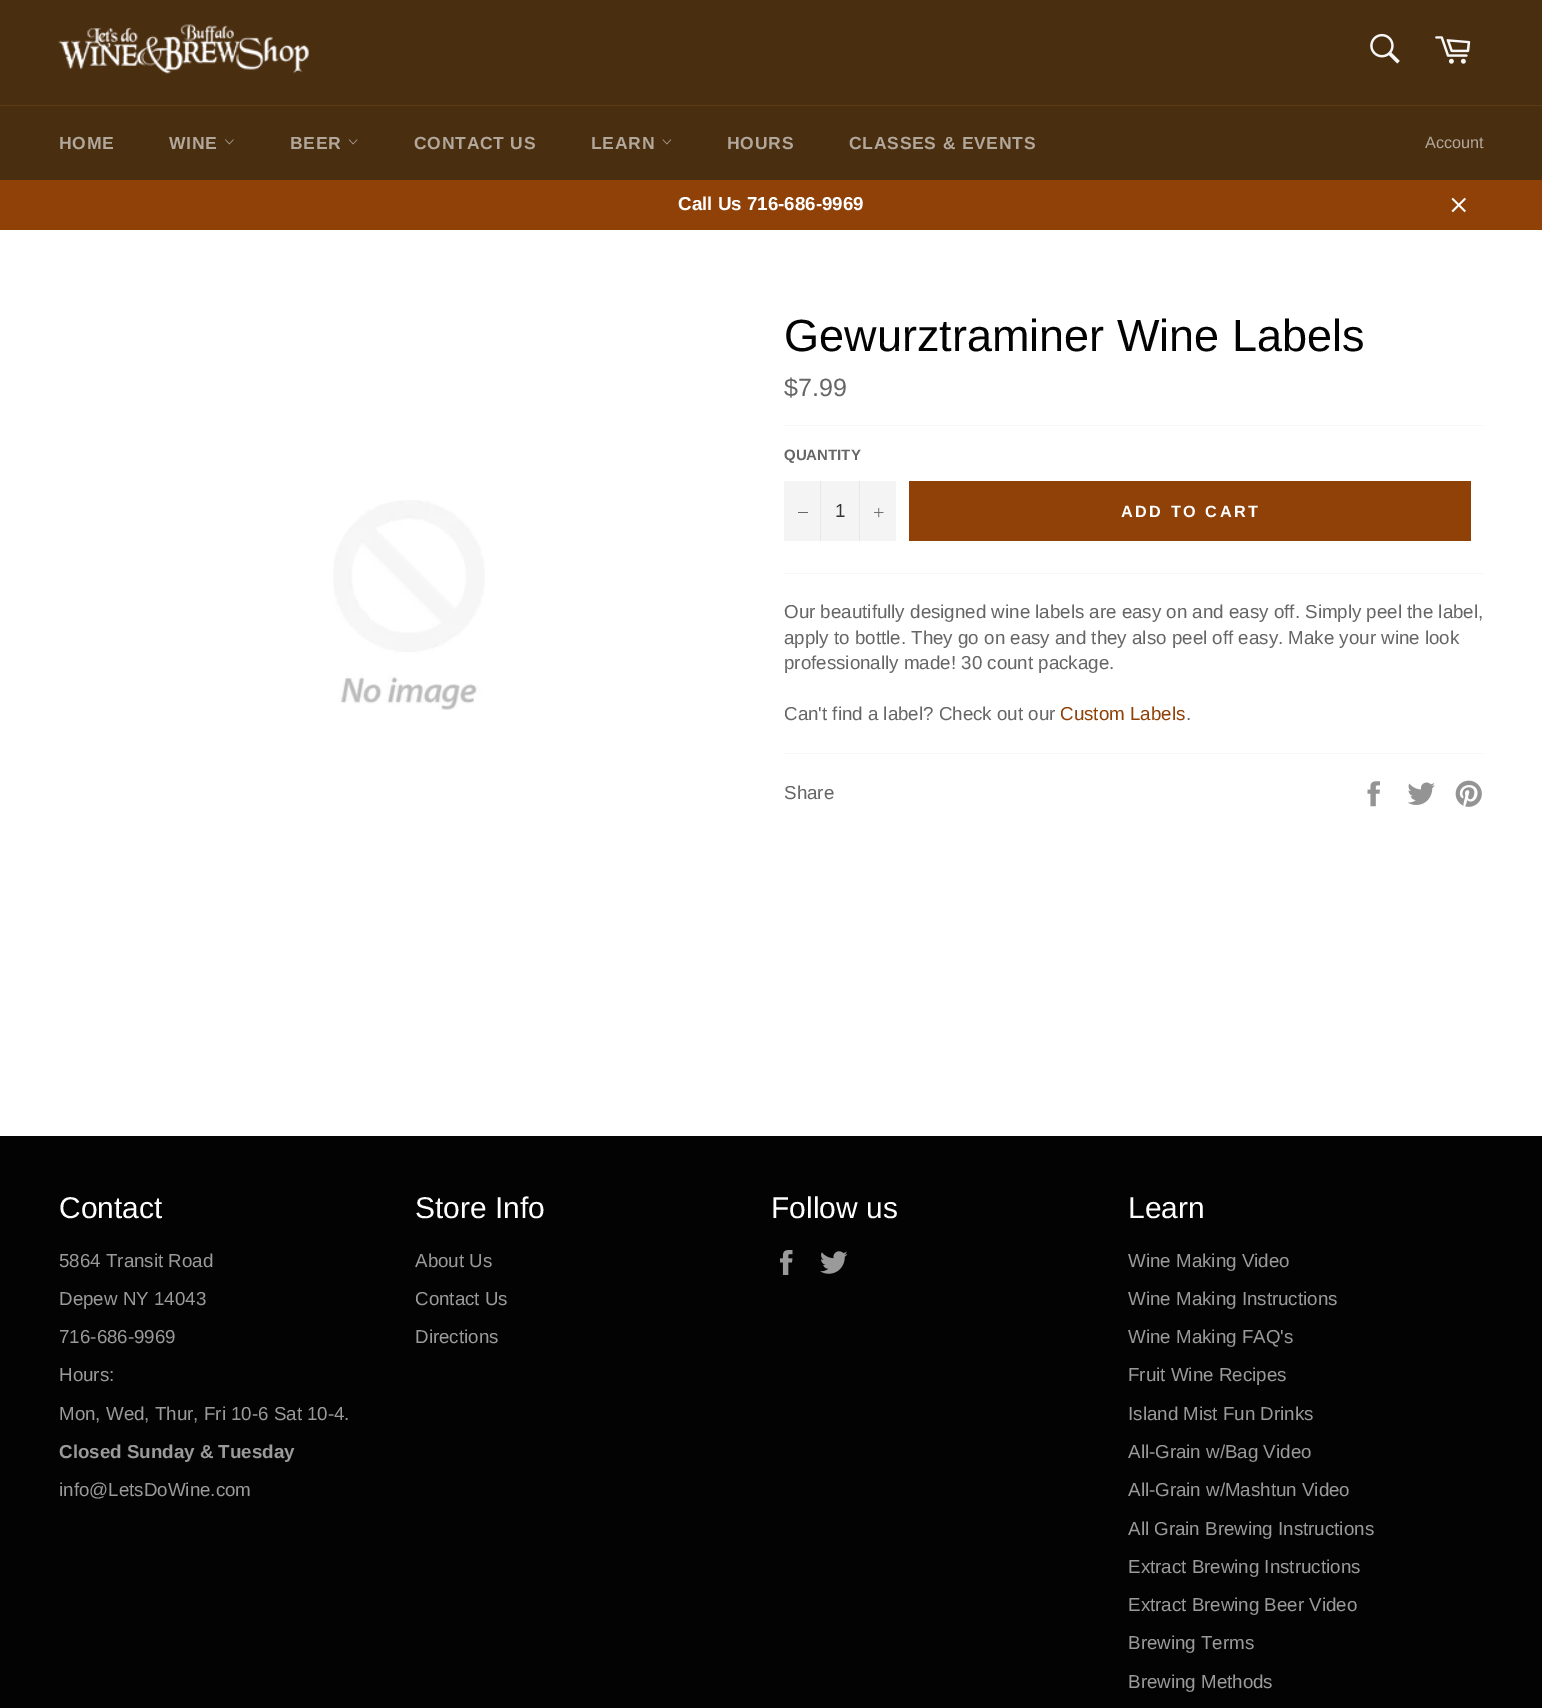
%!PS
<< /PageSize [1542 1708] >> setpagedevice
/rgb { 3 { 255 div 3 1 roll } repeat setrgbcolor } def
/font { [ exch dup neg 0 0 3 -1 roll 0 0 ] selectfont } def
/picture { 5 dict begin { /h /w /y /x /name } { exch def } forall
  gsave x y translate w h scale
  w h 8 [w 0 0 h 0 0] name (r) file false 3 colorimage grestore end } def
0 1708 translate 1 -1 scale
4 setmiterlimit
74 46 16 rgb
0 0 1542 1708 rectfill
(img/1.rgb) 58 24 251 50 picture
(img/2.rgb) 1370 33 30 31 picture
(img/3.rgb) 1435 36 36 28 picture
95 59 21 rgb
0 105 1542 1 rectfill
(img/4.rgb) 225 139 9 6 picture
(img/5.rgb) 348 139 10 6 picture
(img/6.rgb) 662 139 10 6 picture
143 65 8 rgb
0 180 1542 50 rectfill
(img/7.rgb) 1451 197 15 16 picture
255 255 255 rgb
0 230 1542 906 rectfill
(img/8.rgb) 333 500 152 210 picture
[
  [784 425 700 1 247 247 247]
  [784 481 112 60 244 244 244]
  [820 481 1 60 231 231 231]
  [798 512 10 1 102 102 102]
  [859 481 1 60 231 231 231]
] { aload pop rgb rectfill } forall
(img/9.rgb) 874 508 10 10 picture
[
  [909 481 562 60 143 65 8]
  [784 573 700 1 247 247 247]
  [784 753 700 1 247 247 247]
] { aload pop rgb rectfill } forall
(img/10.rgb) 1367 781 13 26 picture
(img/11.rgb) 1407 782 28 23 picture
(img/12.rgb) 1455 780 27 27 picture
3 3 3 rgb
0 1136 1542 572 rectfill
(img/13.rgb) 780 1250 13 25 picture
(img/14.rgb) 820 1251 28 23 picture
/LiberationSans-Bold 17.5 font
178 167 155 rgb
59 149 moveto 0.75 0 (HOME) ashow
169 149 moveto 0.75 0 (WINE) ashow
290 149 moveto 0.75 0 (BEER) ashow
414 149 moveto 0.75 0 (CONTACT US) ashow
591 149 moveto 0.75 0 (LEARN) ashow
727 149 moveto 0.75 0 (HOURS) ashow
849 149 moveto 0.75 0 (CLASSES & EVENTS) ashow
/LiberationSans-Regular 16.25 font
1425 148 moveto (Account) show
/LiberationSans-Bold 18.75 font
255 255 255 rgb
678 210 moveto (Call Us 716-686-9969) show
/LiberationSans-Regular 45 font
3 3 3 rgb
784 351 moveto (Gewurztraminer Wine Labels) show
/LiberationSans-Regular 25 font
102 102 102 rgb
784 396 moveto ($7.99) show
/LiberationSans-Bold 15 font
784 460 moveto (QUANTITY) show
/LiberationSans-Regular 18.75 font
51 51 51 rgb
835 517 moveto (1) show
/LiberationSans-Bold 16.25 font
255 255 255 rgb
1121 517 moveto 2.5 0 (ADD TO CART) ashow
/LiberationSans-Regular 18.75 font
102 102 102 rgb
[
  [(Our beautifully designed wine labels are easy on and easy off. Simply peel the label,) 784 618]
  [(apply to bottle. They go on easy and they also peel off easy. Make your wine look) 784 644]
  [(professionally made! 30 count package.) 784 669]
  [(Can't find a label? Check out our) 784 720]
] { aload pop moveto show } forall
143 65 8 rgb
1060 720 moveto (Custom Labels) show
102 102 102 rgb
1186 720 moveto (.) show
784 799 moveto (Share) show
/LiberationSans-Regular 30 font
255 255 255 rgb
59 1218 moveto (Contact) show
/LiberationSans-Regular 18.75 font
154 154 154 rgb
[
  [(5864 Transit Road) 59 1267]
  [(Depew NY 14043) 59 1305]
  [(716-686-9969) 59 1343]
  [(Hours:) 59 1381]
  [(Mon, Wed, Thur, Fri 10-6 Sat 10-4.) 59 1420]
] { aload pop moveto show } forall
/LiberationSans-Bold 18.75 font
59 1458 moveto (Closed Sunday & Tuesday) show
/LiberationSans-Regular 18.75 font
59 1496 moveto (info@LetsDoWine.com) show
/LiberationSans-Regular 30 font
255 255 255 rgb
415 1218 moveto (Store Info) show
/LiberationSans-Regular 18.75 font
154 154 154 rgb
[
  [(About Us) 415 1267]
  [(Contact Us) 415 1305]
  [(Directions) 415 1343]
] { aload pop moveto show } forall
/LiberationSans-Regular 30 font
255 255 255 rgb
771 1218 moveto (Follow us) show
1128 1218 moveto (Learn) show
/LiberationSans-Regular 18.75 font
154 154 154 rgb
[
  [(Wine Making Video) 1128 1267]
  [(Wine Making Instructions) 1128 1305]
  [(Wine Making FAQ's) 1128 1343]
  [(Fruit Wine Recipes) 1128 1381]
  [(Island Mist Fun Drinks) 1128 1420]
  [(All-Grain w/Bag Video) 1128 1458]
  [(All-Grain w/Mashtun Video) 1128 1496]
  [(All Grain Brewing Instructions) 1128 1535]
  [(Extract Brewing Instructions) 1128 1573]
  [(Extract Brewing Beer Video) 1128 1611]
  [(Brewing Terms) 1128 1649]
  [(Brewing Methods) 1128 1688]
] { aload pop moveto show } forall
showpage
